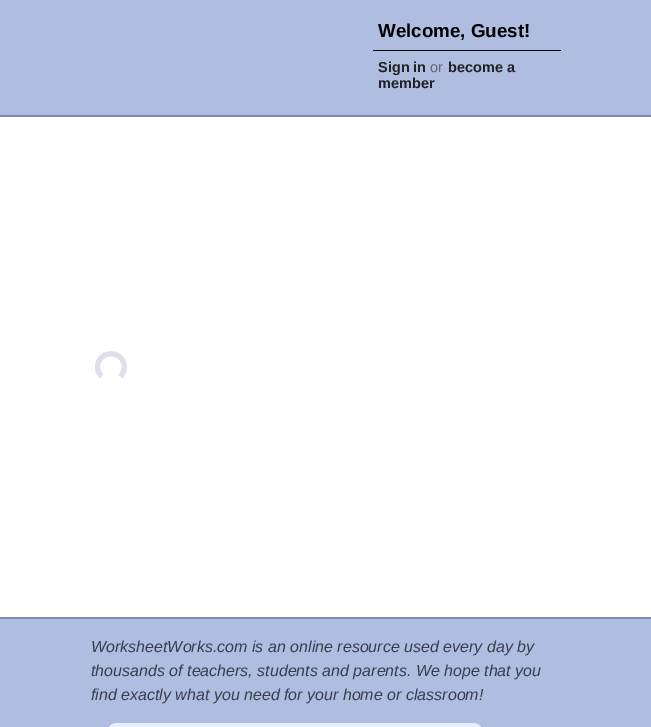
%!PS
<< /PageSize [651 727] >> setpagedevice
/rgb { 3 { 255 div 3 1 roll } repeat setrgbcolor } def
/font { [ exch dup neg 0 0 3 -1 roll 0 0 ] selectfont } def
/roundrect { 5 dict begin { /r /h /w /y /x } { exch def } forall
  x r add y moveto x w add y 2 copy h add r arct x w add y h add x 1 index r arct
  x y h add x y r arct x y 2 copy exch w add exch r arct closepath end } def
0 727 translate 1 -1 scale
4 setmiterlimit
255 255 255 rgb
0 0 651 727 rectfill
[
  [0 0 651 115 175 189 225]
  [0 115 651 2 131 135 178]
  [373 50 188 1 0 0 0]
] { aload pop rgb rectfill } forall
222 223 234 rgb
5 setlinewidth
101.5 376.5 moveto 99 374 97.5 370.5 97.5 367 curveto 97.5 351 121 348.5 124 364.5 curveto 125 368.5 123.5 373.5 120.5 376.5 curveto stroke
175 189 225 rgb
0 619 651 108 rectfill
131 135 178 rgb
0 617 651 2 rectfill
231 238 255 rgb
107 723 376 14 10 roundrect fill
/LiberationSans-Bold 18.75 font
0 0 0 rgb
378 37 moveto (Welcome, Guest!) show
/LiberationSans-Bold 14.5 font
34 34 34 rgb
378 72 moveto (Sign in) show
/LiberationSans-Regular 14.5 font
102 102 102 rgb
430 72 moveto (or) show
/LiberationSans-Bold 14.5 font
34 34 34 rgb
448 72 moveto (become a) show
378 88 moveto (member) show
/LiberationSans-Italic 16 font
58 63 77 rgb
[
  [(WorksheetWorks.com is an online resource used every day by) 91 652]
  [(thousands of teachers, students and parents. We hope that you) 91 676]
  [(find exactly what you need for your home or classroom!) 91 700]
] { aload pop moveto show } forall
showpage
